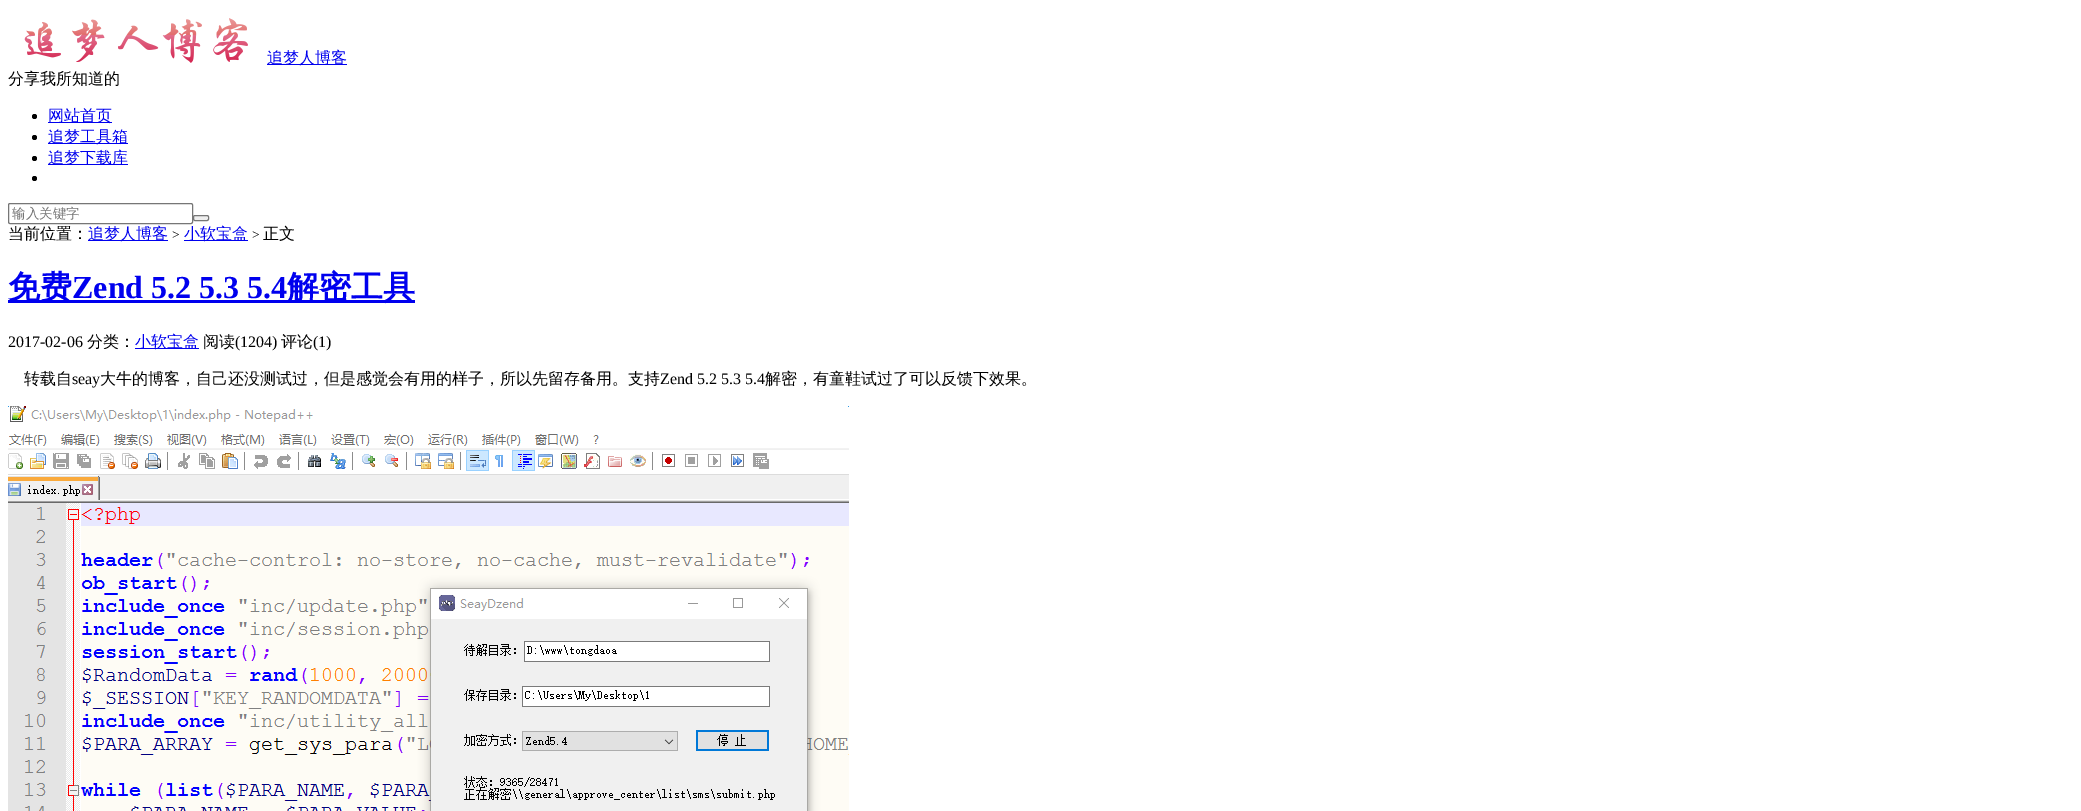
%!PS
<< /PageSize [2081 811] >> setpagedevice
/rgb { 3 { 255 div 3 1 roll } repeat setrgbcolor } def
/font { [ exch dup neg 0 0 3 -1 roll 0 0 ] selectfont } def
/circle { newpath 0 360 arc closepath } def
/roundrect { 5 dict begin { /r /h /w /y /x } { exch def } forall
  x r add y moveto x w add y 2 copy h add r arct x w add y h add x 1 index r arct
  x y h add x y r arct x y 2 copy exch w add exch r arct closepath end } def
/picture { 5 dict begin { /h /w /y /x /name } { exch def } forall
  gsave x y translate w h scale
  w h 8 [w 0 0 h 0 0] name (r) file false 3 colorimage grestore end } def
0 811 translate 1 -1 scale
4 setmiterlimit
255 255 255 rgb
0 0 2081 811 rectfill
(img/1.rgb) 24 18 224 45 picture
0 0 238 rgb
267 64 80 1 rectfill
0 0 0 rgb
34.5 116.5 2.5 circle fill
0 0 238 rgb
48 122 64 1 rectfill
0 0 0 rgb
34.5 137.5 2.5 circle fill
0 0 238 rgb
48 143 80 1 rectfill
0 0 0 rgb
34.5 158.5 2.5 circle fill
0 0 238 rgb
48 164 80 1 rectfill
0 0 0 rgb
34.5 178.5 2.5 circle fill
118 118 118 rgb
8.5 203.5 184 20 1.5 roundrect stroke
239 239 239 rgb
193.5 215.5 15 5 1.5 roundrect gsave fill grestore
118 118 118 rgb
stroke
[
  [88 240 80 1 0 0 238]
  [184 240 64 1 0 0 238]
  [8 300 407 3 0 0 238]
  [135 348 64 1 0 0 238]
] { aload pop rgb rectfill } forall
(img/2.rgb) 8 406 841 405 picture
/WenQuanYiZenHei-Medium 16 font
267 63 moveto (追梦人博客) show
0 0 0 rgb
8 84 moveto (分享我所知道的) show
0 0 238 rgb
[
  [(网站首页) 48 121]
  [(追梦工具箱) 48 142]
  [(追梦下载库) 48 163]
] { aload pop moveto show } forall
/WenQuanYiZenHei-Medium 13.5 font
117 117 117 rgb
12 218 moveto (输入关键字) show
/WenQuanYiZenHei-Medium 16 font
0 0 0 rgb
8 239 moveto (当前位置：) show
0 0 238 rgb
88 239 moveto (追梦人博客) show
/LiberationSerif-Regular 13.5 font
0 0 0 rgb
172 239 moveto (>) show
/WenQuanYiZenHei-Medium 16 font
0 0 238 rgb
184 239 moveto (小软宝盒) show
/LiberationSerif-Regular 13.5 font
0 0 0 rgb
252 239 moveto (>) show
/WenQuanYiZenHei-Medium 16 font
263 239 moveto (正文) show
/WenQuanYiZenHei-Bold 32 font
0 0 238 rgb
8 298 moveto (免费) show
/LiberationSerif-Bold 32 font
72 298 moveto (Zend 5.2 5.3 5.4) show
/WenQuanYiZenHei-Bold 32 font
287 298 moveto (解密工具) show
/LiberationSerif-Regular 16 font
0 0 0 rgb
8 347 moveto (2017-02-06) show
/WenQuanYiZenHei-Medium 16 font
87 347 moveto (分类：) show
0 0 238 rgb
135 347 moveto (小软宝盒) show
0 0 0 rgb
203 347 moveto (阅读) show
/LiberationSerif-Regular 16 font
235 347 moveto (\(1204\)) show
/WenQuanYiZenHei-Medium 16 font
281 347 moveto (评论) show
/LiberationSerif-Regular 16 font
313 347 moveto (\(1\)) show
/WenQuanYiZenHei-Medium 16 font
24 384 moveto (转载自) show
/LiberationSerif-Regular 16 font
72 384 moveto (seay) show
/WenQuanYiZenHei-Medium 16 font
100 384 moveto (大牛的博客，自己还没测试过，但是感觉会有用的样子，所以先留存备用。支持) show
/LiberationSerif-Regular 16 font
660 384 moveto (Zend 5.2 5.3 5.4) show
/WenQuanYiZenHei-Medium 16 font
765 384 moveto (解密，有童鞋试过了可以反馈下效果。) show
showpage
